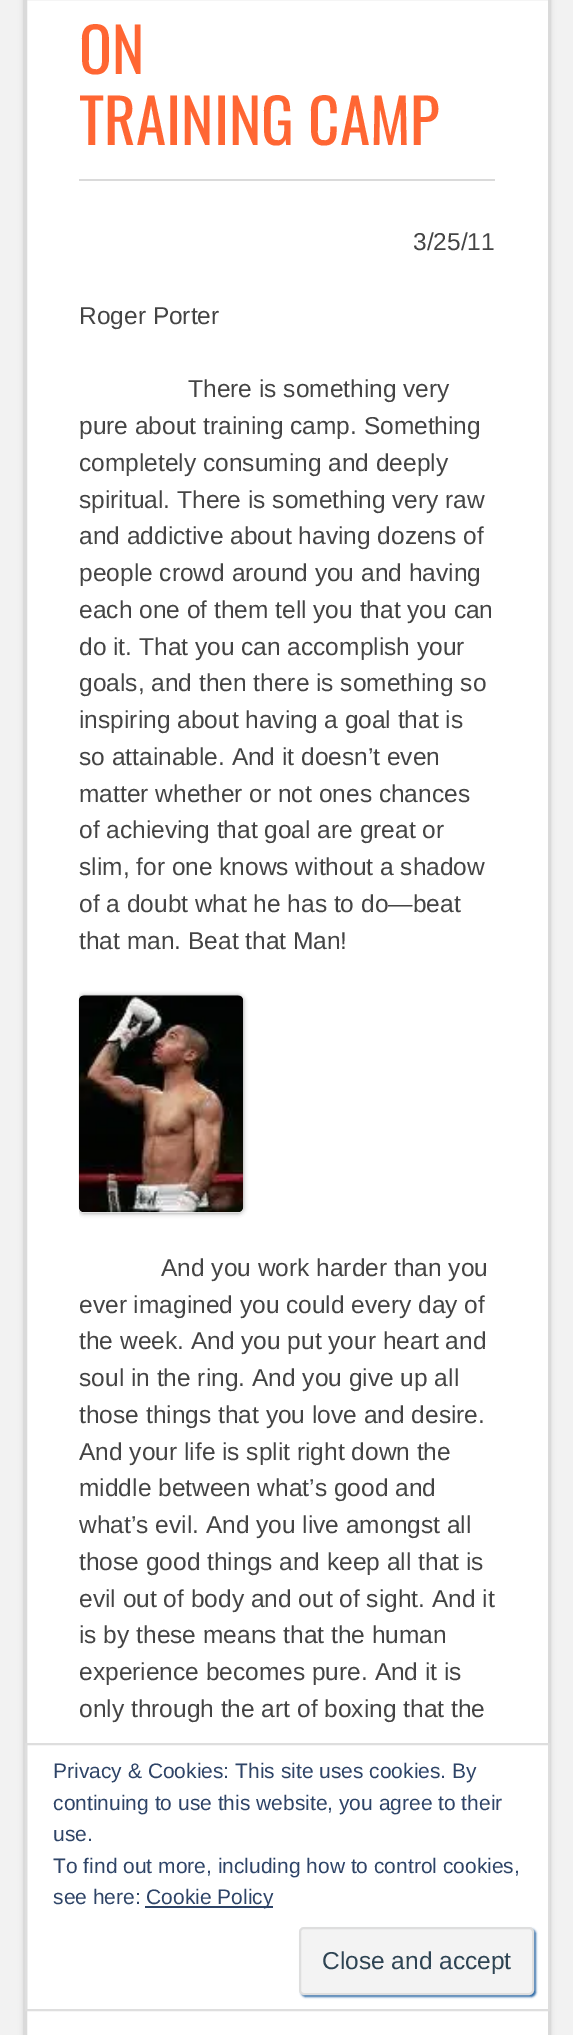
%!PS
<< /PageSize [573 2035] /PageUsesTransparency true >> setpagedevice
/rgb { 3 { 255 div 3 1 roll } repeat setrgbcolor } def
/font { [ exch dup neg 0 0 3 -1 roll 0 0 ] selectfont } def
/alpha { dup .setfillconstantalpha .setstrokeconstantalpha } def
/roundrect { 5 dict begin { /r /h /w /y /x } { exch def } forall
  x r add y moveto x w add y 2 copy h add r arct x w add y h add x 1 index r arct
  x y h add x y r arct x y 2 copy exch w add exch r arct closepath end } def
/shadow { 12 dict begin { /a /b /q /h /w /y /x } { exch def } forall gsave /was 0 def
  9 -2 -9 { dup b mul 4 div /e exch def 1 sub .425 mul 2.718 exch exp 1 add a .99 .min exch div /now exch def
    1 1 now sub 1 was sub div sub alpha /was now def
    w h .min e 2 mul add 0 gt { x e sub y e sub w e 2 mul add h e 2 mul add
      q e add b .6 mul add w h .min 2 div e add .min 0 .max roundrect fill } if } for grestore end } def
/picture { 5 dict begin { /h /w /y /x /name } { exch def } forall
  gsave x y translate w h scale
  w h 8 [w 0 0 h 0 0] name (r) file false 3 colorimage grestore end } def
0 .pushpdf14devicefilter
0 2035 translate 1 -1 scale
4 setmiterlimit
242 242 242 rgb
0 0 573 2035 rectfill
218 218 218 rgb
23 -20 528 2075 12 2.5 1 shadow
2 setlinewidth
24 -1 526 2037 rectstroke
255 255 255 rgb
26 -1 moveto 549 -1 lineto 549 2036 lineto 26 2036 lineto closepath gsave fill grestore
218 218 218 rgb
stroke
79 179 416 2 rectfill
gsave
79 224 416 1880 rectclip
0 0 0 rgb
79 996 164 217 5 2.5 0.4 shadow
grestore
(img/1.rgb) 78 995 166 218 picture
222 222 222 rgb
26 1744 523 266 rectstroke
46 68 103 rgb
145 1906 128 2 rectfill
46 106 167 rgb
301 1929 235 68 5 1 1 shadow
243 243 243 rgb
300 1928 233 66 4 roundrect gsave fill grestore
222 222 222 rgb
stroke
/Oswald-Regular 61.25 font
255 102 51 rgb
79 74 moveto (ON) show
79 145 moveto (TRAINING CAMP) show
/LiberationSans-Regular 24.5 font
68 68 68 rgb
[
  [(3/25/11) 413 250]
  [(Roger Porter) 79 324]
  [(There is something very) 188 397]
  [(pure about training camp. Something) 79 434]
  [(completely consuming and deeply) 79 471]
  [(spiritual. There is something very raw) 79 508]
  [(and addictive about having dozens of) 79 544]
  [(people crowd around you and having) 79 581]
  [(each one of them tell you that you can) 79 618]
  [(do it. That you can accomplish your) 79 655]
  [(goals, and then there is something so) 79 691]
  [(inspiring about having a goal that is) 79 728]
  [(so attainable. And it doesn’t even) 79 765]
  [(matter whether or not ones chances) 79 802]
  [(of achieving that goal are great or) 79 838]
  [(slim, for one knows without a shadow) 79 875]
  [(of a doubt what he has to do—beat) 79 912]
  [(that man. Beat that Man!) 79 949]
  [(And you work harder than you) 161 1276]
  [(ever imagined you could every day of) 79 1313]
  [(the week. And you put your heart and) 79 1349]
  [(soul in the ring. And you give up all) 79 1386]
  [(those things that you love and desire.) 79 1423]
  [(And your life is split right down the) 79 1460]
  [(middle between what’s good and) 79 1496]
  [(what’s evil. And you live amongst all) 79 1533]
  [(those good things and keep all that is) 79 1570]
  [(evil out of body and out of sight. And it) 79 1607]
  [(is by these means that the human) 79 1643]
  [(experience becomes pure. And it is) 79 1680]
  [(only through the art of boxing that the) 79 1717]
] { aload pop moveto show } forall
/LiberationSans-Regular 21 font
46 68 103 rgb
[
  [(Privacy & Cookies: This site uses cookies. By) 53 1778]
  [(continuing to use this website, you agree to their) 53 1810]
  [(use.) 53 1841]
  [(To find out more, including how to control cookies,) 53 1873]
  [(see here:) 53 1904]
  [(Cookie Policy) 146 1904]
] { aload pop moveto show } forall
/LiberationSans-Regular 24.5 font
46 68 83 rgb
322 1969 moveto (Close and accept) show
.poppdf14devicefilter showpage
